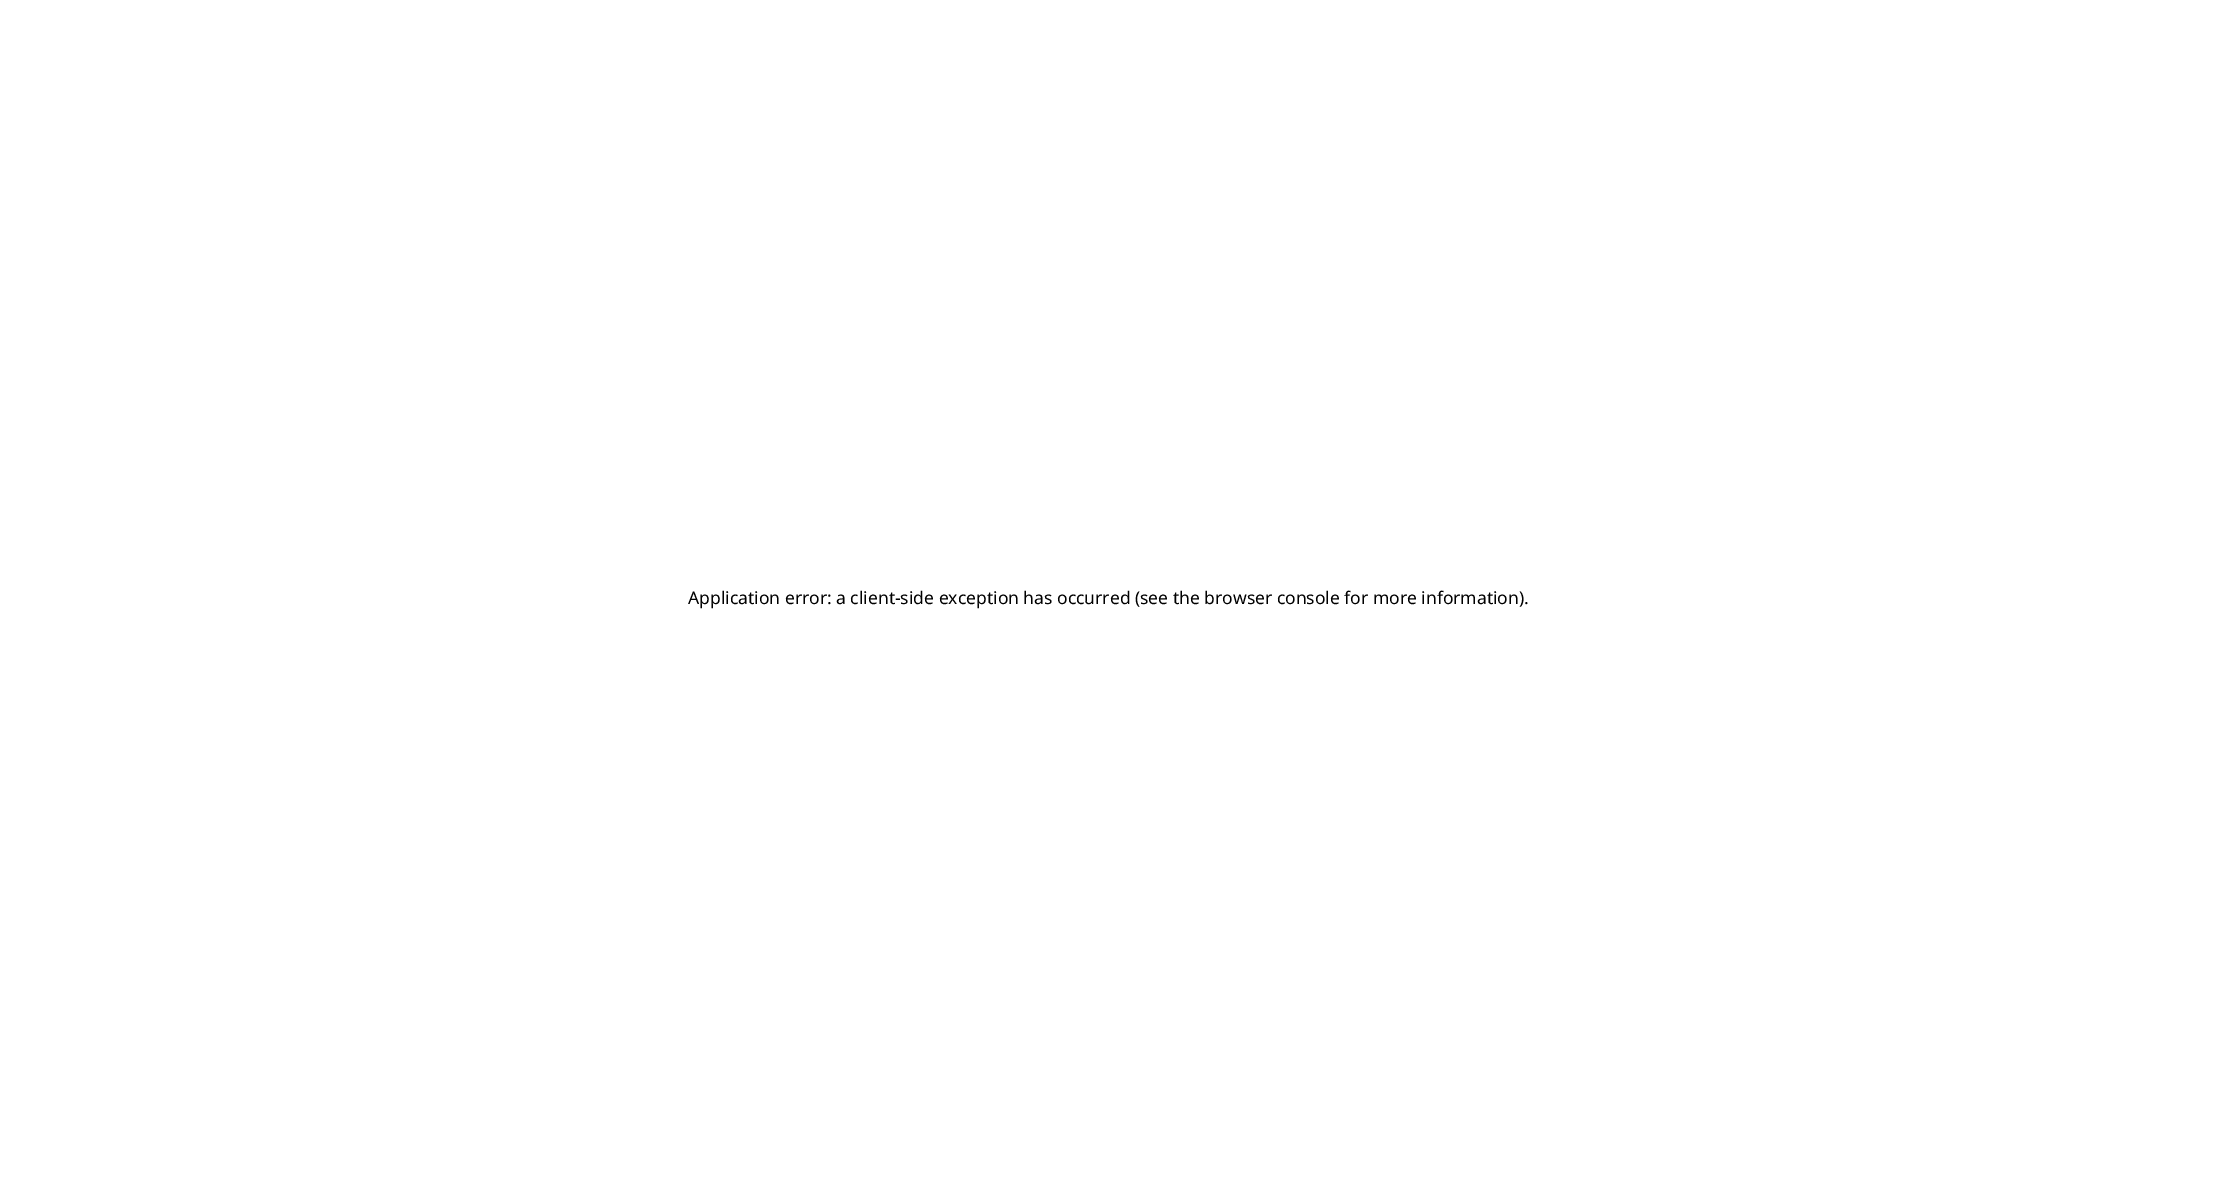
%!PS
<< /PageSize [2216 1192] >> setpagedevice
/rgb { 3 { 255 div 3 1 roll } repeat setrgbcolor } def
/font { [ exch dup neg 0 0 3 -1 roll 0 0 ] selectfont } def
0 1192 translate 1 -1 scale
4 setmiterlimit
255 255 255 rgb
0 0 2216 1192 rectfill
/NotoSans-Regular 17.5 font
0 0 0 rgb
688 604 moveto (Application error: a client-side exception has occurred \(see the browser console for more information\).) show
showpage
